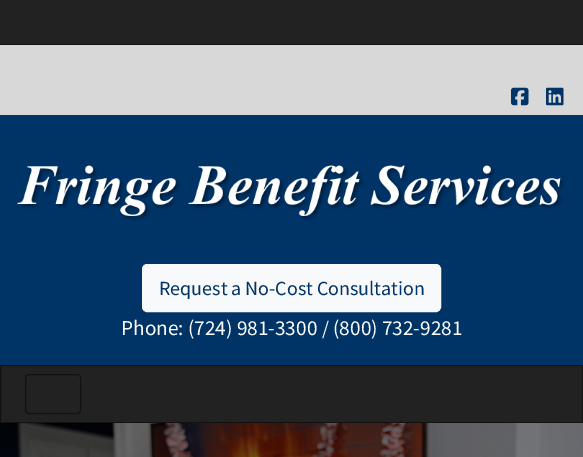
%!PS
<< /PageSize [583 457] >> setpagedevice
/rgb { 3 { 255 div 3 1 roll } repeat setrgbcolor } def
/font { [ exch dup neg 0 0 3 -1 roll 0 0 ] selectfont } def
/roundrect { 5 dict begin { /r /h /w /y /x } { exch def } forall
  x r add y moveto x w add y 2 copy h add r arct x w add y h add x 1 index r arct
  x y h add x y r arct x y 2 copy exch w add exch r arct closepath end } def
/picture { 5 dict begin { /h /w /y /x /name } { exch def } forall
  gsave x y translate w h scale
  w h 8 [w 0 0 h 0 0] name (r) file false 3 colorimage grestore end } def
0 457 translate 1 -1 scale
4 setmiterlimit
34 34 34 rgb
0 0 583 457 rectfill
18 18 18 rgb
0 44 583 1 rectfill
216 216 216 rgb
0 45 583 70 rectfill
(img/1.rgb) 511 87 18 19 picture
(img/2.rgb) 546 87 18 19 picture
0 51 102 rgb
0 115 583 250 rectfill
(img/3.rgb) 17 165 547 56 picture
248 249 250 rgb
142.5 264.5 298 47 4.5 roundrect gsave fill grestore
stroke
18 18 18 rgb
0.5 365.5 582 57 rectstroke
25.5 374.5 55 39 3.5 roundrect stroke
(img/4.rgb) 0 423 583 34 picture
/SourceSansPro-Regular 20 font
0 51 102 rgb
159 295 moveto (Request a No-Cost Consultation) show
/SourceSansPro-Regular 21.25 font
255 255 255 rgb
121 335 moveto (Phone: \(724\) 981-3300) show
/SourceSansPro-Regular 20 font
322 335 moveto (/) show
/SourceSansPro-Regular 21.25 font
333 335 moveto (\(800\) 732-9281) show
showpage
